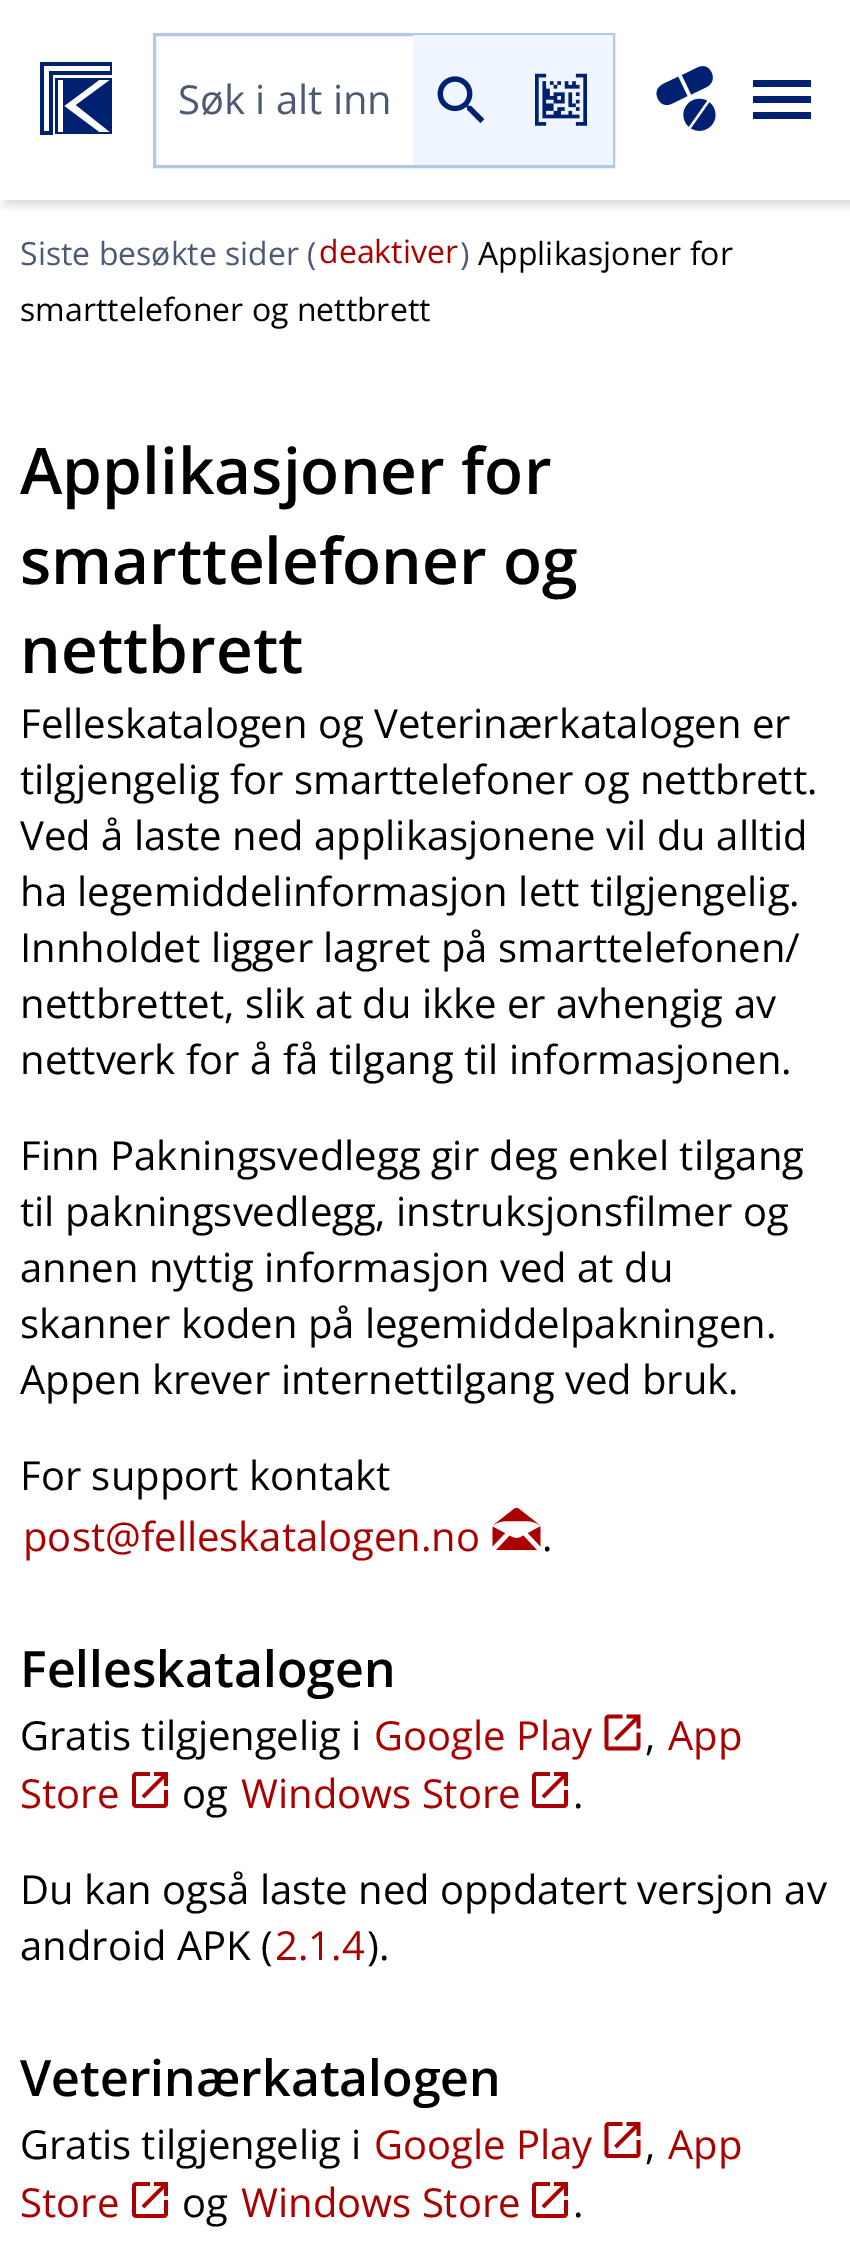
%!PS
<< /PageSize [850 2267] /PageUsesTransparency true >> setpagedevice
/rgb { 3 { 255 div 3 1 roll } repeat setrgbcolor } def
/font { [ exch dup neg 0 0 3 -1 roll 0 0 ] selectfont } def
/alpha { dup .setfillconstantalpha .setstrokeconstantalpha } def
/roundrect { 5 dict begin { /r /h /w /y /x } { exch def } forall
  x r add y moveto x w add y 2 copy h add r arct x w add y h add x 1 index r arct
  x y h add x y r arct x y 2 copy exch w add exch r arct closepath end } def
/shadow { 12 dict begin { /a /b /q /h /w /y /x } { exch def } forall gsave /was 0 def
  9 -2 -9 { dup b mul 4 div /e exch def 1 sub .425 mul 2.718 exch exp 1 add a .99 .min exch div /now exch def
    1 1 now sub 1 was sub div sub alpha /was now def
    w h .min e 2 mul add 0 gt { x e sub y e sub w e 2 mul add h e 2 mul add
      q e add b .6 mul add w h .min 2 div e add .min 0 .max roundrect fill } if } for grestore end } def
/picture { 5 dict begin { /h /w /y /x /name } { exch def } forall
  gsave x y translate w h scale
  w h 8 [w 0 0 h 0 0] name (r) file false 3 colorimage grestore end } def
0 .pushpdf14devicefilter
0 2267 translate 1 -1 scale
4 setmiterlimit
255 255 255 rgb
0 0 850 2267 rectfill
gsave
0 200 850 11 rectclip
0 14 47 rgb
5 5 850 200 0 5 0.15 shadow
grestore
0 33 113 rgb
55 78 moveto 112 78 lineto 112 134 lineto 55 134 lineto closepath 58 80 moveto 58 132 lineto 63 132 lineto 63 80 lineto closepath 110 80 moveto 99 80 lineto 64 106 lineto 99 132 lineto 110 132 lineto 76 105 lineto closepath 40 62 moveto 112 62 lineto 112 75 lineto 53 75 lineto 53 135 lineto 40 135 lineto closepath 44 66 moveto 44 131 lineto 49 131 lineto 49 71 lineto 110 71 lineto 110 66 lineto closepath fill
177 200 230 rgb
3 setlinewidth
154.5 34.5 459 132 rectstroke
239 246 255 rgb
413 35 200 130 rectfill
(img/1.rgb) 437 76 48 48 picture
(img/2.rgb) 535 73 52 53 picture
(img/3.rgb) 656 66 60 65 picture
0 33 113 rgb
753 119 moveto 811 119 lineto 811 112 lineto 753 112 lineto closepath 753 103 moveto 811 103 lineto 811 96 lineto 753 96 lineto closepath 753 80 moveto 753 87 lineto 811 87 lineto 811 80 lineto closepath fill
(img/4.rgb) 492 1507 49 44 picture
(img/5.rgb) 604 1714 37 37 picture
(img/6.rgb) 132 1772 36 36 picture
(img/6.rgb) 532 1772 36 36 picture
(img/7.rgb) 604 2122 37 36 picture
(img/6.rgb) 132 2182 36 36 picture
(img/6.rgb) 532 2182 36 36 picture
/OpenSans-Regular 40 font
78 89 116 rgb
178 114 moveto (Søk i alt inn) show
/OpenSans-Regular 32 font
20 265 moveto (Siste besøkte sider \() show
170 0 0 rgb
319 263 moveto (deaktiver) show
78 89 116 rgb
460 265 moveto (\)) show
0 0 0 rgb
478 265 moveto (Applikasjoner for) show
20 321 moveto (smarttelefoner og nettbrett) show
/OpenSans-SemiBold 64 font
[
  [(Applikasjoner for) 20 494]
  [(smarttelefoner og) 20 584]
  [(nettbrett) 20 673]
] { aload pop moveto show } forall
/OpenSans-Regular 40 font
[
  [(Felleskatalogen og Veterinærkatalogen er) 20 738]
  [(tilgjengelig for smarttelefoner og nettbrett.) 20 794]
  [(Ved å laste ned applikasjonene vil du alltid) 20 850]
  [(ha legemiddelinformasjon lett tilgjengelig.) 20 906]
  [(Innholdet ligger lagret på smarttelefonen/) 20 962]
  [(nettbrettet, slik at du ikke er avhengig av) 20 1018]
  [(nettverk for å få tilgang til informasjonen.) 20 1074]
  [(Finn Pakningsvedlegg gir deg enkel tilgang) 20 1170]
  [(til pakningsvedlegg, instruksjonsfilmer og) 20 1226]
  [(annen nyttig informasjon ved at du) 20 1282]
  [(skanner koden på legemiddelpakningen.) 20 1338]
  [(Appen krever internettilgang ved bruk.) 20 1394]
  [(For support kontakt) 20 1490]
] { aload pop moveto show } forall
170 0 0 rgb
23 1551 moveto (post@felleskatalogen.no) show
0 0 0 rgb
542 1551 moveto (.) show
/OpenSans-SemiBold 50 font
20 1687 moveto (Felleskatalogen) show
/OpenSans-Regular 40 font
20 1750 moveto (Gratis tilgjengelig i) show
170 0 0 rgb
374 1750 moveto (Google Play) show
0 0 0 rgb
645 1750 moveto (,) show
170 0 0 rgb
668 1750 moveto (App) show
20 1808 moveto (Store) show
0 0 0 rgb
182 1808 moveto (og) show
170 0 0 rgb
241 1808 moveto (Windows Store) show
0 0 0 rgb
[
  [(.) 573 1808]
  [(Du kan også laste ned oppdatert versjon av) 20 1904]
  [(android APK \() 20 1960]
] { aload pop moveto show } forall
170 0 0 rgb
275 1960 moveto (2.1.4) show
0 0 0 rgb
367 1960 moveto (\).) show
/OpenSans-SemiBold 50 font
20 2096 moveto (Veterinærkatalogen) show
/OpenSans-Regular 40 font
20 2159 moveto (Gratis tilgjengelig i) show
170 0 0 rgb
374 2159 moveto (Google Play) show
0 0 0 rgb
645 2159 moveto (,) show
170 0 0 rgb
668 2159 moveto (App) show
20 2217 moveto (Store) show
0 0 0 rgb
182 2217 moveto (og) show
170 0 0 rgb
241 2217 moveto (Windows Store) show
0 0 0 rgb
573 2217 moveto (.) show
.poppdf14devicefilter showpage
